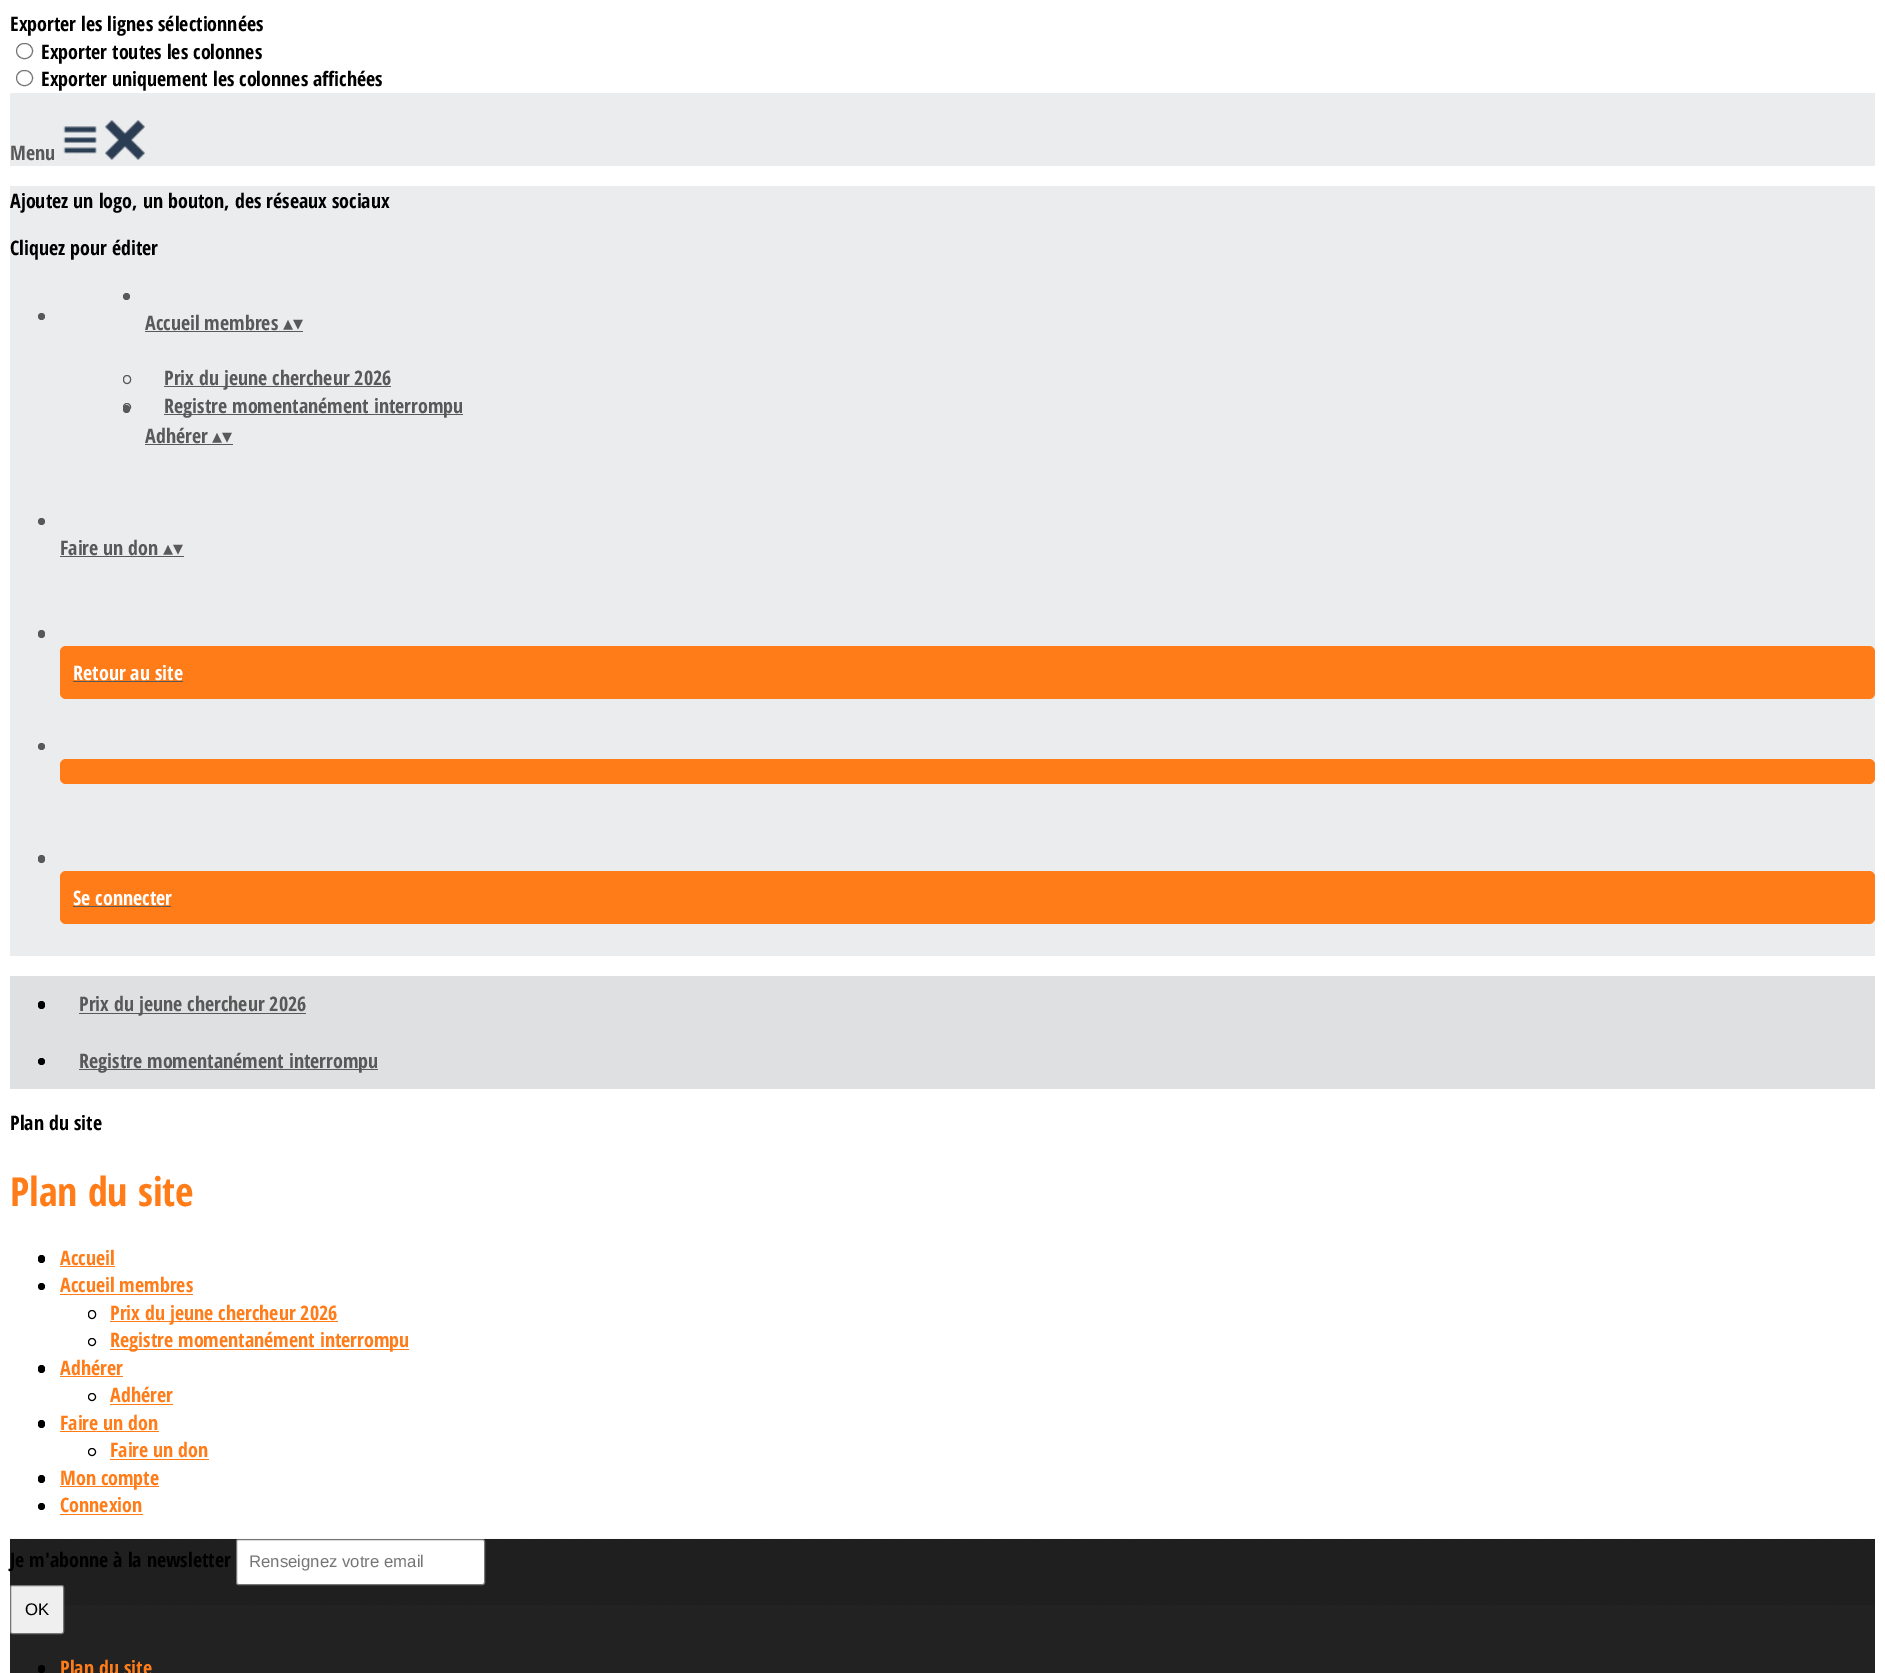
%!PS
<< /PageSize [1885 1673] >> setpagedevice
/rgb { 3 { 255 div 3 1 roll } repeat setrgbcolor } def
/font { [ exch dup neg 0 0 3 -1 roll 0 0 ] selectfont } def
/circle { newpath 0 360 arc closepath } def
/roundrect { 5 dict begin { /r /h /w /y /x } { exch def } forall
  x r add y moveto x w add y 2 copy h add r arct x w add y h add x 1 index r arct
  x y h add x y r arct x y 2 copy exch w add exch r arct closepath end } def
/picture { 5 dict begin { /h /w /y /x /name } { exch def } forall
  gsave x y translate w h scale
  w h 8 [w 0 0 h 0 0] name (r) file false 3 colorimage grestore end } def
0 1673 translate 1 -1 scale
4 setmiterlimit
255 255 255 rgb
0 0 1885 1673 rectfill
118 118 118 rgb
16.5 43.5 16 15 7.5 roundrect stroke
16.5 70.5 16 15 7.5 roundrect stroke
235 236 238 rgb
10 93 1865 73 rectfill
(img/1.rgb) 63 126 34 34 picture
(img/2.rgb) 105 120 40 40 picture
10 186 1865 770 rectfill
89 89 89 rgb
41.5 316.5 3.5 circle fill
126.5 296.5 3.5 circle fill
145 331 158 1 rectfill
123.5 375.5 7 8 3.5 roundrect stroke
164 386 227 1 rectfill
127 407 3.5 circle stroke
164 414 299 1 rectfill
123 405 7 8 3.5 roundrect fill
145 444 88 1 rectfill
41.5 521.5 3.5 circle fill
60 556 124 1 rectfill
38 630 7 8 3.5 roundrect fill
255 124 24 rgb
60 646 1815 53 6 roundrect fill
89 89 89 rgb
73 681 110 1 rectfill
41.5 746.5 3.5 circle fill
255 124 24 rgb
60 759 1815 25 6 roundrect fill
89 89 89 rgb
38 855 7 8 3.5 roundrect fill
255 124 24 rgb
60 871 1815 53 6 roundrect fill
89 89 89 rgb
73 906 98 1 rectfill
223 224 226 rgb
10 976 1865 113 rectfill
0 0 0 rgb
38 1001 7 8 3.5 roundrect fill
89 89 89 rgb
79 1013 227 1 rectfill
0 0 0 rgb
41.5 1061.5 3.5 circle fill
89 89 89 rgb
79 1069 299 1 rectfill
0 0 0 rgb
38 1255 7 8 3.5 roundrect fill
255 124 24 rgb
60 1266 55 1 rectfill
0 0 0 rgb
41.5 1286.5 3.5 circle fill
255 124 24 rgb
60 1294 133 1 rectfill
0 0 0 rgb
88.5 1310.5 7 8 3.5 roundrect stroke
255 124 24 rgb
110 1321 228 1 rectfill
0 0 0 rgb
92 1342 3.5 circle stroke
255 124 24 rgb
110 1349 299 1 rectfill
0 0 0 rgb
38 1365 7 8 3.5 roundrect fill
255 124 24 rgb
60 1376 63 1 rectfill
0 0 0 rgb
92 1397 3.5 circle stroke
255 124 24 rgb
110 1404 63 1 rectfill
0 0 0 rgb
38 1420 7 8 3.5 roundrect fill
255 124 24 rgb
60 1431 99 1 rectfill
0 0 0 rgb
92 1452 3.5 circle stroke
255 124 24 rgb
110 1459 99 1 rectfill
0 0 0 rgb
38 1475 7 8 3.5 roundrect fill
255 124 24 rgb
60 1486 99 1 rectfill
0 0 0 rgb
41.5 1506.5 3.5 circle fill
255 124 24 rgb
60 1514 83 1 rectfill
34 34 34 rgb
10 1539 1865 134 rectfill
(img/3.rgb) 10 1538 1865 67 picture
255 255 255 rgb
236.5 1539.5 248 45 2 roundrect gsave fill grestore
118 118 118 rgb
stroke
239 239 239 rgb
10.5 1585.5 53 48 2 roundrect gsave fill grestore
118 118 118 rgb
stroke
0 0 0 rgb
38 1665 7 8 3.5 roundrect fill
/OpenSansCondensed-Bold 20 font
[
  [(Exporter les lignes sélectionnées) 10 31]
  [(Exporter toutes les colonnes) 41 59]
  [(Exporter uniquement les colonnes affichées) 41 86]
] { aload pop moveto show } forall
89 89 89 rgb
10 160 moveto (Menu) show
0 0 0 rgb
10 208 moveto (Ajoutez un logo, un bouton, des réseaux sociaux) show
10 255 moveto (Cliquez pour éditer) show
89 89 89 rgb
145 330 moveto (Accueil membres) show
/DejaVuSans-Regular 20 font
283 330 moveto (▴▾) show
/OpenSansCondensed-Bold 20 font
[
  [(Prix du jeune chercheur 2026) 164 385]
  [(Registre momentanément interrompu) 164 413]
  [(Adhérer) 145 443]
] { aload pop moveto show } forall
/DejaVuSans-Regular 20 font
212 443 moveto (▴▾) show
/OpenSansCondensed-Bold 20 font
60 555 moveto (Faire un don) show
/DejaVuSans-Regular 20 font
163 555 moveto (▴▾) show
/OpenSansCondensed-Bold 20 font
255 255 255 rgb
73 680 moveto (Retour au site) show
73 905 moveto (Se connecter) show
89 89 89 rgb
79 1011 moveto (Prix du jeune chercheur 2026) show
79 1068 moveto (Registre momentanément interrompu) show
0 0 0 rgb
10 1130 moveto (Plan du site) show
/OpenSansCondensed-Bold 40 font
255 124 24 rgb
10 1206 moveto (Plan du site) show
/OpenSansCondensed-Bold 20 font
[
  [(Accueil) 60 1265]
  [(Accueil membres) 60 1292]
  [(Prix du jeune chercheur 2026) 110 1320]
  [(Registre momentanément interrompu) 110 1347]
  [(Adhérer) 60 1375]
  [(Adhérer) 110 1402]
  [(Faire un don) 60 1430]
  [(Faire un don) 110 1457]
  [(Mon compte) 60 1485]
  [(Connexion) 60 1512]
] { aload pop moveto show } forall
0 0 0 rgb
10 1567 moveto (Je m'abonne à la newsletter) show
/LiberationSans-Regular 16.75 font
117 117 117 rgb
249 1567 moveto (Renseignez votre email) show
0 0 0 rgb
25 1615 moveto (OK) show
/OpenSansCondensed-Bold 20 font
255 124 24 rgb
60 1675 moveto (Plan du site) show
showpage
